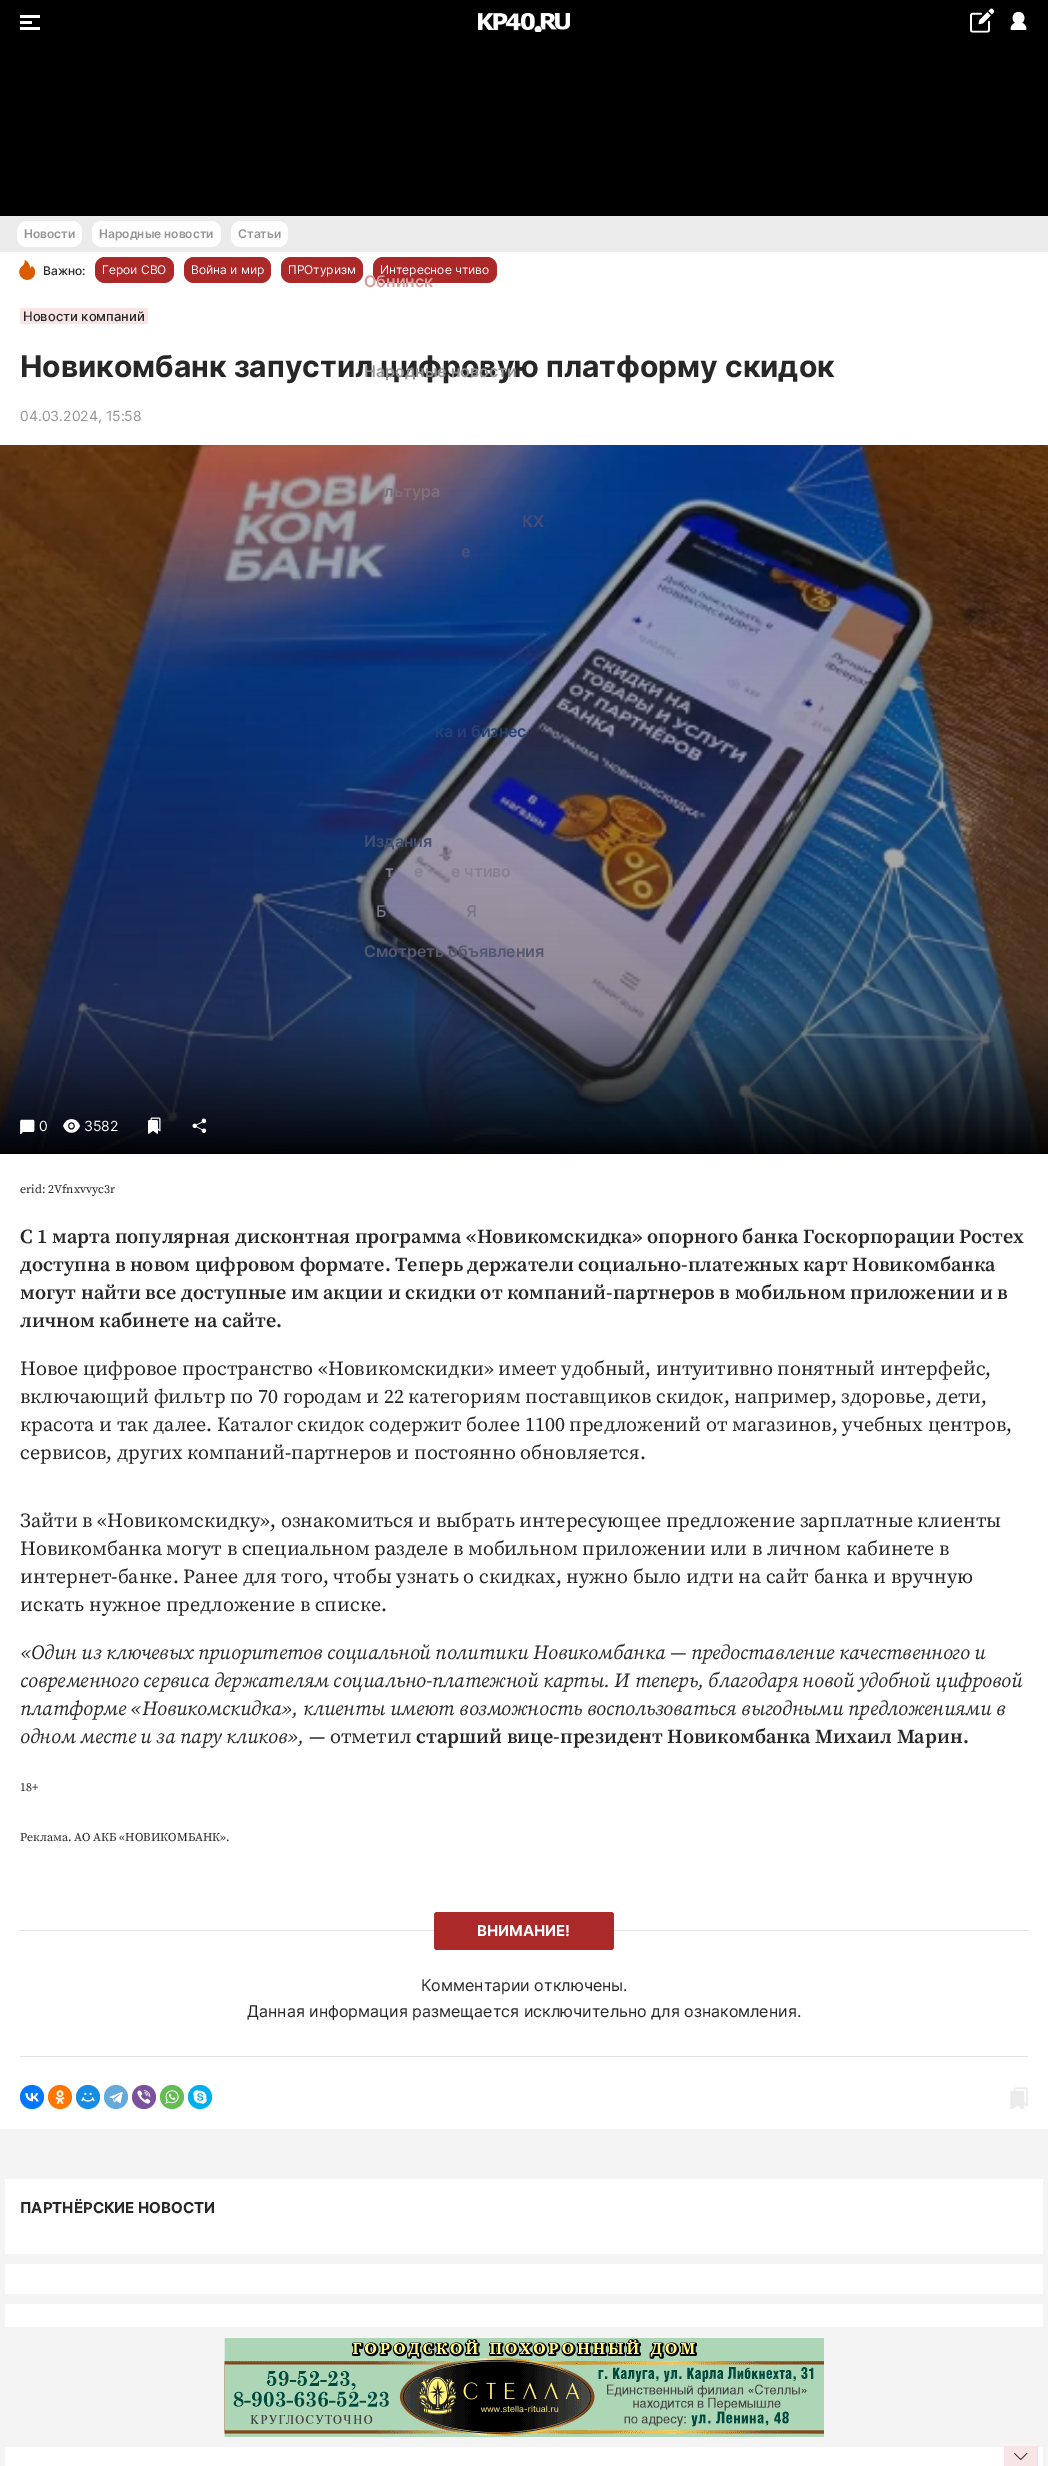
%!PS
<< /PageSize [1048 2466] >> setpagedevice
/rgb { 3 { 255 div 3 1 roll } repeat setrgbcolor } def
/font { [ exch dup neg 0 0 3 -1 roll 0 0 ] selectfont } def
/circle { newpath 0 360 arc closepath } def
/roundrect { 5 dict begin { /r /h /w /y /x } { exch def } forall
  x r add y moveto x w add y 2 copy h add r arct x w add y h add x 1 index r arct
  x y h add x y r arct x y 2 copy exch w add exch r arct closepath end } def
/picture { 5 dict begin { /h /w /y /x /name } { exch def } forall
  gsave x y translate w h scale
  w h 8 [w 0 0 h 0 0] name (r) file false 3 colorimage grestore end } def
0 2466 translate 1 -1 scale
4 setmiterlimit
244 244 244 rgb
0 0 1048 2466 rectfill
[
  [0 0 1048 216 0 0 0]
  [0 252 1048 1877 255 255 255]
  [0 216 1048 36 235 235 235]
] { aload pop rgb rectfill } forall
255 255 255 rgb
17 221 65 26 10 roundrect fill
92 221 129 26 10 roundrect fill
231 221 57 26 10 roundrect fill
(img/1.rgb) 19 260 17 20 picture
171 41 41 rgb
95 257 79 26 10 roundrect fill
184 257 87 26 10 roundrect fill
281 257 82 26 10 roundrect fill
373 257 124 26 10 roundrect fill
[
  [20 15 20 3 255 255 255]
  [20 21 12 3 255 255 255]
  [20 27 20 3 255 255 255]
] { aload pop rgb rectfill } forall
(img/2.rgb) 970 8 24 25 picture
(img/3.rgb) 1010 12 17 18 picture
(img/4.rgb) 478 12 92 20 picture
248 228 228 rgb
20 308 128 16 rectfill
(img/5.rgb) 0 445 1048 709 picture
(img/6.rgb) 20 1119 15 15 picture
(img/7.rgb) 63 1119 17 14 picture
(img/8.rgb) 148 1117 13 17 picture
(img/9.rgb) 192 1118 15 15 picture
227 227 227 rgb
20 1930 1008 1 rectfill
20 2056 1008 1 rectfill
171 41 41 rgb
434 1912 180 38 3 roundrect fill
0 119 255 rgb
32 2097 12 circle fill
(img/10.rgb) 25 2093 14 9 picture
255 119 0 rgb
60 2097 12 circle fill
(img/11.rgb) 55 2090 10 14 picture
22 141 226 rgb
88 2097 12 circle fill
(img/12.rgb) 81 2092 14 10 picture
100 169 220 rgb
116 2097 12 circle fill
(img/13.rgb) 109 2092 14 12 picture
123 81 157 rgb
144 2097 12 circle fill
(img/14.rgb) 137 2090 14 14 picture
101 188 84 rgb
172 2097 12 circle fill
(img/15.rgb) 165 2090 14 14 picture
0 175 240 rgb
200 2097 12 circle fill
(img/16.rgb) 193 2090 14 14 picture
(img/17.rgb) 1010 2087 18 22 picture
[
  [5 2179 1038 75 255 255 255]
  [5 2264 1038 63 255 255 255]
  [5 2294 1038 10 244 244 244]
] { aload pop rgb rectfill } forall
(img/18.rgb) 224 2337 600 100 picture
255 255 255 rgb
5 2447 1038 19 rectfill
248 228 228 rgb
1004 2446 34 20 rectfill
(img/19.rgb) 1014 2452 14 8 picture
/Inter-SemiBold 12 font
150 150 150 rgb
[
  [(Новости) 24 238]
  [(Народные новости) 99 238]
  [(Статьи) 238 238]
] { aload pop moveto show } forall
/Inter-Medium 12 font
39 39 39 rgb
43 275 moveto (Важно:) show
/Inter-Regular 12 font
255 255 255 rgb
[
  [(Герои СВО) 102 274]
  [(Война и мир) 191 274]
  [(ПРОтуризм) 288 274]
  [(Интересное чтиво) 380 274]
] { aload pop moveto show } forall
/Inter-SemiBold 16 font
216 156 156 rgb
364 287 moveto (Обнинск) show
128 112 123 rgb
384 497 moveto (льтура) show
70 77 122 rgb
522 527 moveto (КХ) show
69 82 129 rgb
461 557 moveto (е) show
37 66 118 rgb
435 737 moveto (ка и бизнес) show
67 79 108 rgb
364 847 moveto (Издания) show
132 128 145 rgb
[
  [(т) 385 877]
  [(е) 414 877]
  [(е чтиво) 451 877]
] { aload pop moveto show } forall
/Inter-Medium 16 font
120 116 138 rgb
376 917 moveto (Б) show
466 917 moveto (Я) show
/Inter-SemiBold 16 font
85 88 111 rgb
364 957 moveto (Смотреть объявления) show
/Inter-Medium 13 font
39 39 39 rgb
23 321 moveto (Новости компаний) show
/Inter-Bold 30 font
20 377 moveto (Новикомбанк запустил цифровую платформу скидок) show
/Inter-SemiBold 16 font
150 150 150 rgb
364 377 moveto (Народные новости) show
/Inter-Regular 14 font
20 421 moveto (04.03.2024, 15:58) show
255 255 255 rgb
39 1131 moveto (0) show
84 1131 moveto (3582) show
/SourceSerifPro-Regular 12 font
39 39 39 rgb
20 1193 moveto (erid: 2Vfnxvvyc3r) show
/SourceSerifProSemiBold-SemiBold 20 font
[
  [(С 1 марта популярная дисконтная программа «Новикомскидка» опорного банка Госкорпорации Ростех) 20 1243]
  [(доступна в новом цифровом формате. Теперь держатели социально-платежных карт Новикомбанка) 20 1271]
  [(могут найти все доступные им акции и скидки от компаний-партнеров в мобильном приложении и в) 20 1299]
  [(личном кабинете на сайте.) 20 1327]
] { aload pop moveto show } forall
/SourceSerifPro-Regular 20 font
[
  [(Новое цифровое пространство «Новикомскидки» имеет удобный, интуитивно понятный интерфейс,) 20 1375]
  [(включающий фильтр по 70 городам и 22 категориям поставщиков скидок, например, здоровье, дети,) 20 1403]
  [(красота и так далее. Каталог скидок содержит более 1100 предложений от магазинов, учебных центров,) 20 1431]
  [(сервисов, других компаний-партнеров и постоянно обновляется.) 20 1459]
  [(Зайти в «Новикомскидку», ознакомиться и выбрать интересующее предложение зарплатные клиенты) 20 1527]
  [(Новикомбанка могут в специальном разделе в мобильном приложении или в личном кабинете в) 20 1555]
  [(интернет-банке. Ранее для того, чтобы узнать о скидках, нужно было идти на сайт банка и вручную) 20 1583]
  [(искать нужное предложение в списке.) 20 1611]
] { aload pop moveto show } forall
/SourceSerifPro-Italic 20 font
[
  [(«Один из ключевых приоритетов социальной политики Новикомбанка — предоставление качественного и) 20 1659]
  [(современного сервиса держателям социально-платежной карты. И теперь, благодаря новой удобной цифровой) 20 1687]
  [(платформе «Новикомскидка», клиенты имеют возможность воспользоваться выгодными предложениями в) 20 1715]
  [(одном месте и за пару кликов»,) 20 1743]
] { aload pop moveto show } forall
/SourceSerifPro-Regular 20 font
309 1743 moveto (— отметил) show
/SourceSerifProSemiBold-SemiBold 20 font
416 1743 moveto (старший вице-президент Новикомбанка Михаил Марин.) show
/SourceSerifPro-Regular 12 font
20 1791 moveto (18+) show
20 1841 moveto (Реклама. АО АКБ «НОВИКОМБАНК».) show
/Inter-Bold 15 font
255 255 255 rgb
477 1936 moveto (ВНИМАНИЕ!) show
/Inter-Regular 16 font
39 39 39 rgb
421 1991 moveto (Комментарии отключены.) show
247 2017 moveto (Данная информация размещается исключительно для ознакомления.) show
/Inter-Bold 15 font
20 2213 moveto (ПАРТНЁРСКИЕ НОВОСТИ) show
showpage
